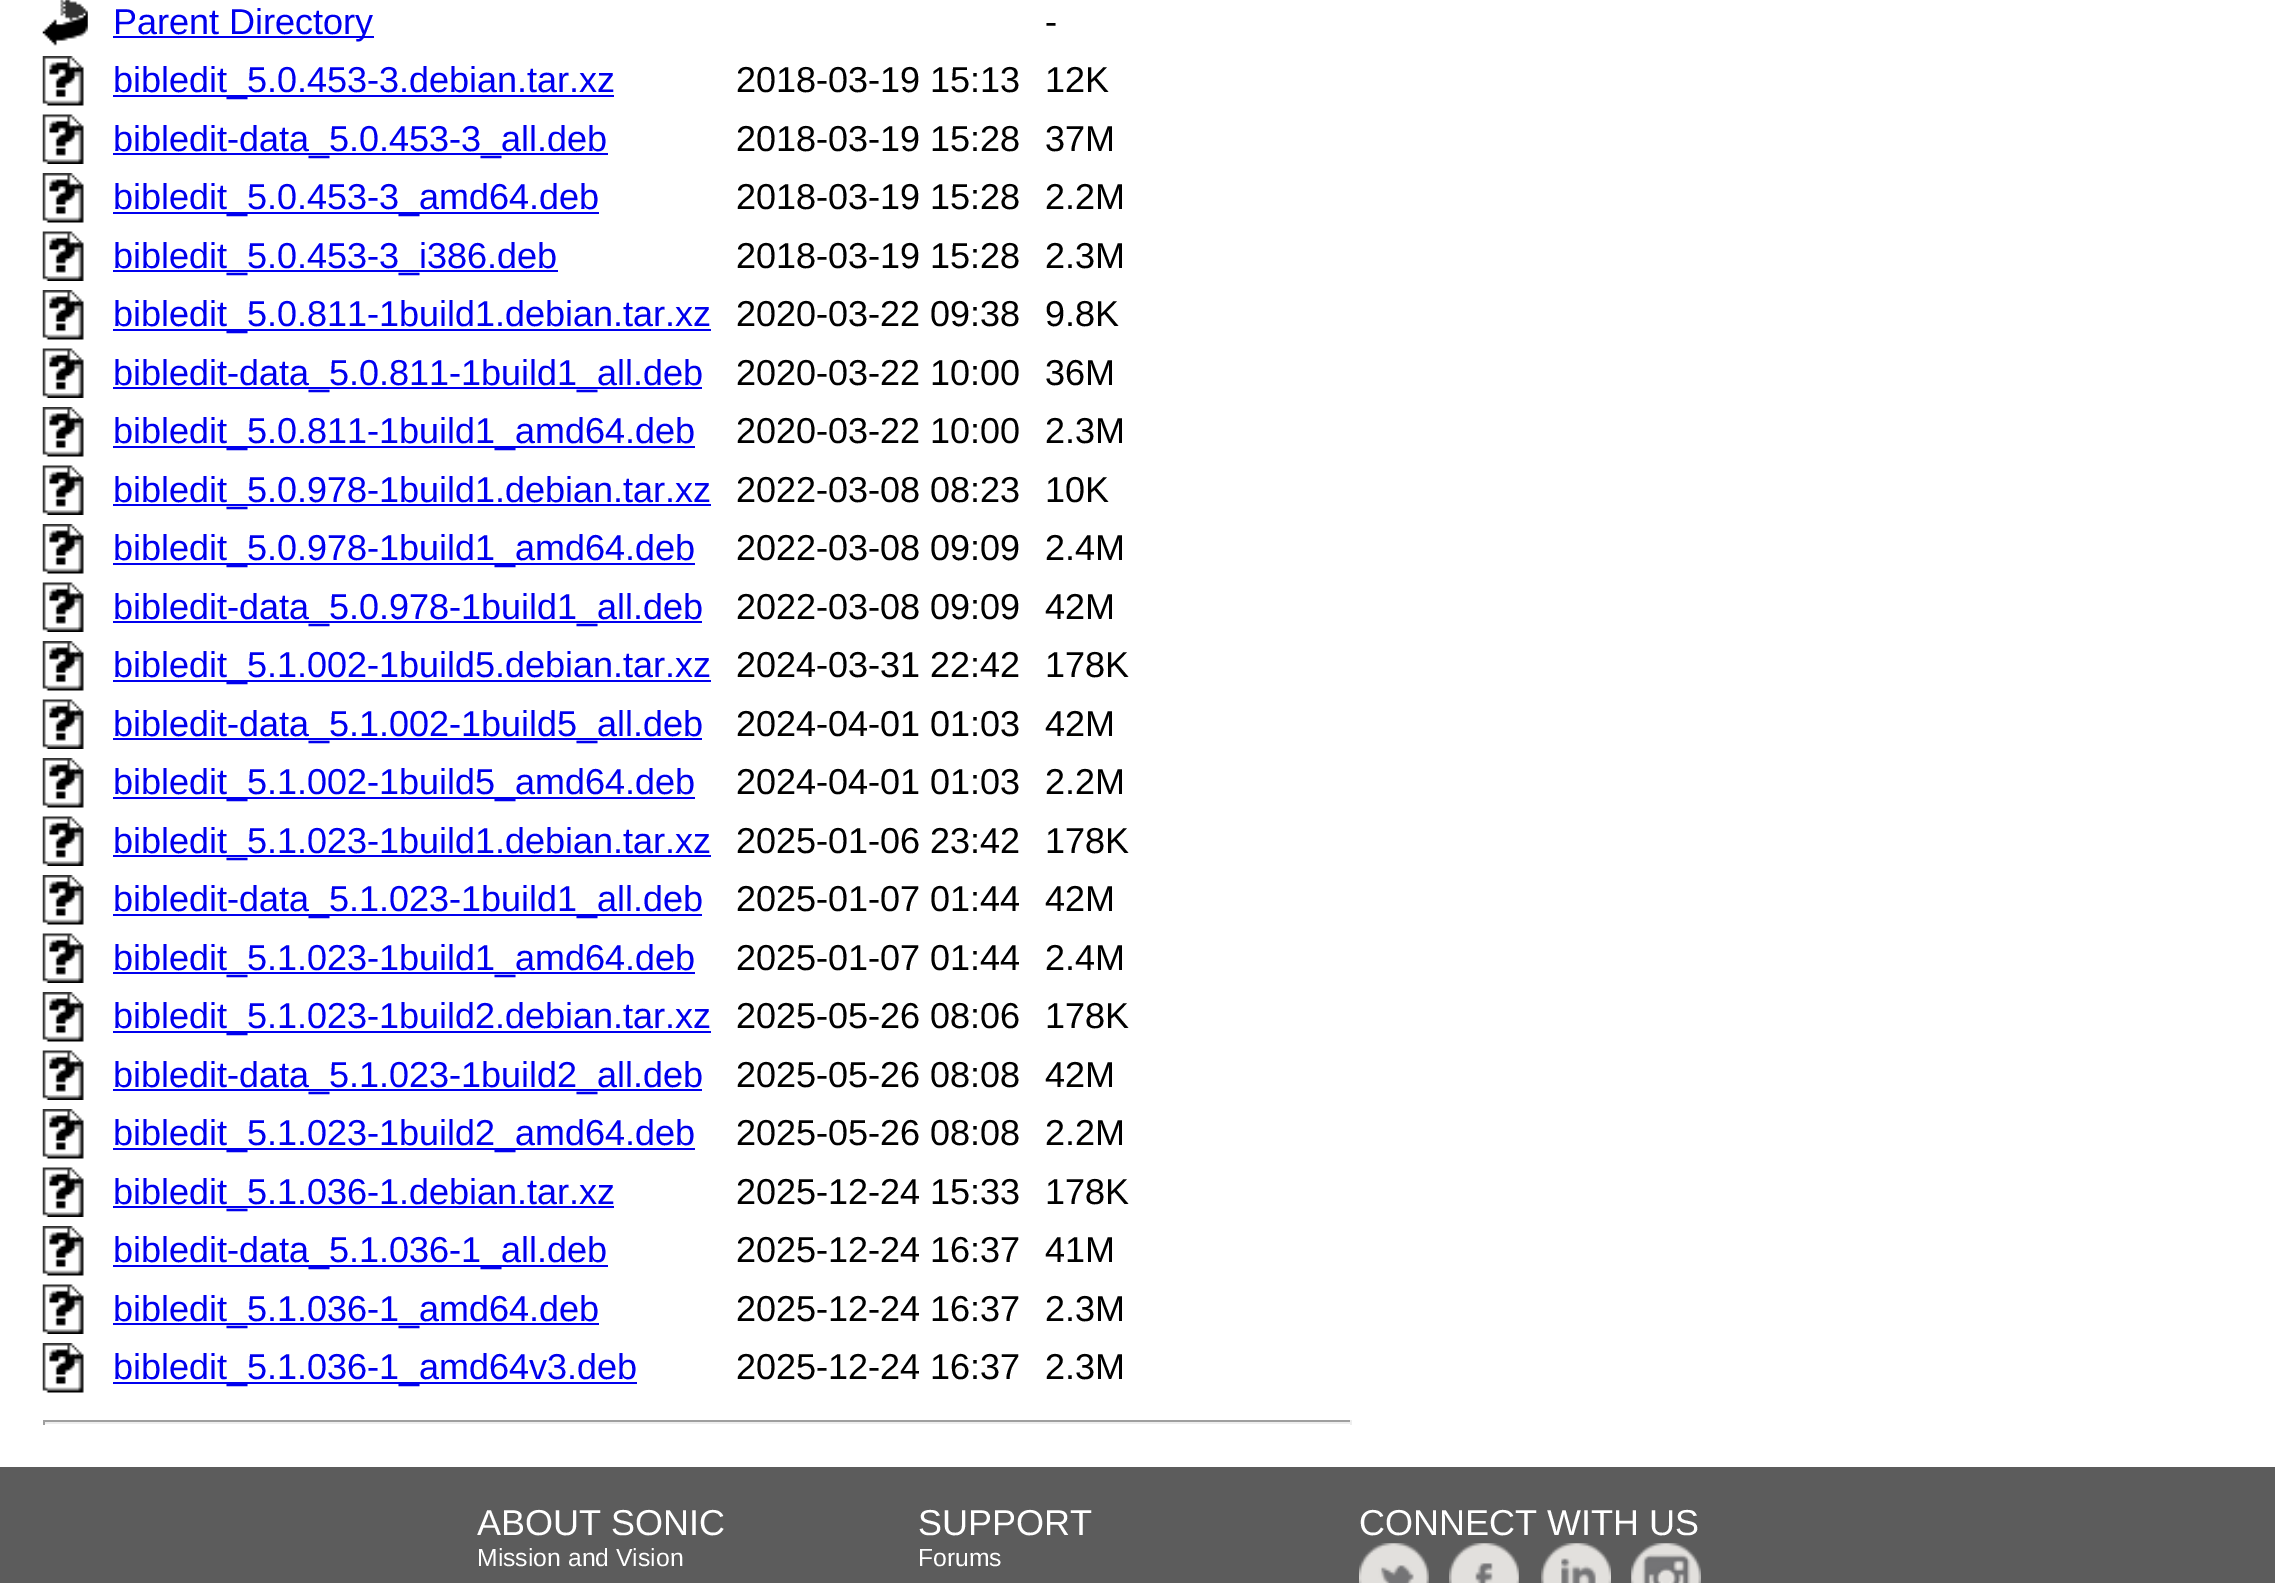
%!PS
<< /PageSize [2275 1583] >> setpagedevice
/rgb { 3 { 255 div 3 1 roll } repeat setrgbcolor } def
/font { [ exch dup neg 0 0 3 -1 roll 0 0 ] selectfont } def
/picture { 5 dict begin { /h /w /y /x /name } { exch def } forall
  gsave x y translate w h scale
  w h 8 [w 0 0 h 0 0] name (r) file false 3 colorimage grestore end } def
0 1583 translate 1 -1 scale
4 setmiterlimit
255 255 255 rgb
0 0 2275 1583 rectfill
(img/1.rgb) 42 0 46 46 picture
0 0 238 rgb
113 36 261 2 rectfill
(img/2.rgb) 42 56 42 50 picture
113 95 501 2 rectfill
(img/3.rgb) 42 114 42 50 picture
113 153 495 2 rectfill
(img/4.rgb) 42 173 42 50 picture
113 212 486 2 rectfill
(img/3.rgb) 42 231 42 50 picture
113 270 445 2 rectfill
(img/4.rgb) 42 290 42 50 picture
113 329 598 2 rectfill
(img/3.rgb) 42 348 42 50 picture
113 387 589 2 rectfill
(img/4.rgb) 42 407 42 50 picture
113 446 582 2 rectfill
(img/3.rgb) 42 465 42 50 picture
113 504 598 2 rectfill
(img/4.rgb) 42 524 42 50 picture
113 563 582 2 rectfill
(img/3.rgb) 42 582 42 50 picture
113 621 589 2 rectfill
(img/2.rgb) 42 641 42 50 picture
113 680 598 2 rectfill
(img/3.rgb) 42 699 42 50 picture
113 738 589 2 rectfill
(img/4.rgb) 42 758 42 50 picture
113 797 582 2 rectfill
(img/3.rgb) 42 816 42 50 picture
113 855 598 2 rectfill
(img/4.rgb) 42 875 42 50 picture
113 914 589 2 rectfill
(img/3.rgb) 42 933 42 50 picture
113 972 582 2 rectfill
(img/4.rgb) 42 992 42 50 picture
113 1031 598 2 rectfill
(img/5.rgb) 42 1050 42 50 picture
113 1089 589 2 rectfill
(img/4.rgb) 42 1109 42 50 picture
113 1148 582 2 rectfill
(img/6.rgb) 42 1167 42 50 picture
113 1206 501 2 rectfill
(img/4.rgb) 42 1226 42 50 picture
113 1265 495 2 rectfill
(img/3.rgb) 42 1284 42 50 picture
113 1323 486 2 rectfill
(img/4.rgb) 42 1343 42 50 picture
[
  [113 1382 524 2 0 0 238]
  [43 1420 1309 2 159 159 159]
  [1350 1420 2 5 238 238 238]
  [43 1422 1309 2 238 238 238]
  [43 1420 2 5 159 159 159]
  [0 1467 2275 116 92 92 92]
] { aload pop rgb rectfill } forall
(img/7.rgb) 1359 1543 70 40 picture
(img/8.rgb) 1449 1543 70 40 picture
(img/9.rgb) 1541 1543 70 40 picture
(img/10.rgb) 1631 1543 70 40 picture
/LiberationSans-Regular 36 font
0 0 238 rgb
113 34 moveto (Parent Directory) show
0 0 0 rgb
1045 34 moveto (-) show
0 0 238 rgb
113 92 moveto (bibledit_5.0.453-3.debian.tar.xz) show
0 0 0 rgb
736 92 moveto (2018-03-19 15:13) show
1045 92 moveto (12K) show
0 0 238 rgb
113 151 moveto (bibledit-data_5.0.453-3_all.deb) show
0 0 0 rgb
736 151 moveto (2018-03-19 15:28) show
1045 151 moveto (37M) show
0 0 238 rgb
113 209 moveto (bibledit_5.0.453-3_amd64.deb) show
0 0 0 rgb
736 209 moveto (2018-03-19 15:28) show
1045 209 moveto (2.2M) show
0 0 238 rgb
113 268 moveto (bibledit_5.0.453-3_i386.deb) show
0 0 0 rgb
736 268 moveto (2018-03-19 15:28) show
1045 268 moveto (2.3M) show
0 0 238 rgb
113 326 moveto (bibledit_5.0.811-1build1.debian.tar.xz) show
0 0 0 rgb
736 326 moveto (2020-03-22 09:38) show
1045 326 moveto (9.8K) show
0 0 238 rgb
113 385 moveto (bibledit-data_5.0.811-1build1_all.deb) show
0 0 0 rgb
736 385 moveto (2020-03-22 10:00) show
1045 385 moveto (36M) show
0 0 238 rgb
113 443 moveto (bibledit_5.0.811-1build1_amd64.deb) show
0 0 0 rgb
736 443 moveto (2020-03-22 10:00) show
1045 443 moveto (2.3M) show
0 0 238 rgb
113 502 moveto (bibledit_5.0.978-1build1.debian.tar.xz) show
0 0 0 rgb
736 502 moveto (2022-03-08 08:23) show
1045 502 moveto (10K) show
0 0 238 rgb
113 560 moveto (bibledit_5.0.978-1build1_amd64.deb) show
0 0 0 rgb
736 560 moveto (2022-03-08 09:09) show
1045 560 moveto (2.4M) show
0 0 238 rgb
113 619 moveto (bibledit-data_5.0.978-1build1_all.deb) show
0 0 0 rgb
736 619 moveto (2022-03-08 09:09) show
1045 619 moveto (42M) show
0 0 238 rgb
113 677 moveto (bibledit_5.1.002-1build5.debian.tar.xz) show
0 0 0 rgb
736 677 moveto (2024-03-31 22:42) show
1045 677 moveto (178K) show
0 0 238 rgb
113 736 moveto (bibledit-data_5.1.002-1build5_all.deb) show
0 0 0 rgb
736 736 moveto (2024-04-01 01:03) show
1045 736 moveto (42M) show
0 0 238 rgb
113 794 moveto (bibledit_5.1.002-1build5_amd64.deb) show
0 0 0 rgb
736 794 moveto (2024-04-01 01:03) show
1045 794 moveto (2.2M) show
0 0 238 rgb
113 853 moveto (bibledit_5.1.023-1build1.debian.tar.xz) show
0 0 0 rgb
736 853 moveto (2025-01-06 23:42) show
1045 853 moveto (178K) show
0 0 238 rgb
113 911 moveto (bibledit-data_5.1.023-1build1_all.deb) show
0 0 0 rgb
736 911 moveto (2025-01-07 01:44) show
1045 911 moveto (42M) show
0 0 238 rgb
113 970 moveto (bibledit_5.1.023-1build1_amd64.deb) show
0 0 0 rgb
736 970 moveto (2025-01-07 01:44) show
1045 970 moveto (2.4M) show
0 0 238 rgb
113 1028 moveto (bibledit_5.1.023-1build2.debian.tar.xz) show
0 0 0 rgb
736 1028 moveto (2025-05-26 08:06) show
1045 1028 moveto (178K) show
0 0 238 rgb
113 1087 moveto (bibledit-data_5.1.023-1build2_all.deb) show
0 0 0 rgb
736 1087 moveto (2025-05-26 08:08) show
1045 1087 moveto (42M) show
0 0 238 rgb
113 1145 moveto (bibledit_5.1.023-1build2_amd64.deb) show
0 0 0 rgb
736 1145 moveto (2025-05-26 08:08) show
1045 1145 moveto (2.2M) show
0 0 238 rgb
113 1204 moveto (bibledit_5.1.036-1.debian.tar.xz) show
0 0 0 rgb
736 1204 moveto (2025-12-24 15:33) show
1045 1204 moveto (178K) show
0 0 238 rgb
113 1262 moveto (bibledit-data_5.1.036-1_all.deb) show
0 0 0 rgb
736 1262 moveto (2025-12-24 16:37) show
1045 1262 moveto (41M) show
0 0 238 rgb
113 1321 moveto (bibledit_5.1.036-1_amd64.deb) show
0 0 0 rgb
736 1321 moveto (2025-12-24 16:37) show
1045 1321 moveto (2.3M) show
0 0 238 rgb
113 1379 moveto (bibledit_5.1.036-1_amd64v3.deb) show
0 0 0 rgb
736 1379 moveto (2025-12-24 16:37) show
1045 1379 moveto (2.3M) show
255 255 255 rgb
477 1535 moveto (ABOUT SONIC) show
/LiberationSans-Regular 24.75 font
477 1566 moveto (Mission and Vision) show
/LiberationSans-Regular 36 font
918 1535 moveto (SUPPORT) show
/LiberationSans-Regular 24.75 font
918 1566 moveto (Forums) show
/LiberationSans-Regular 36 font
1359 1535 moveto (CONNECT WITH US) show
showpage
